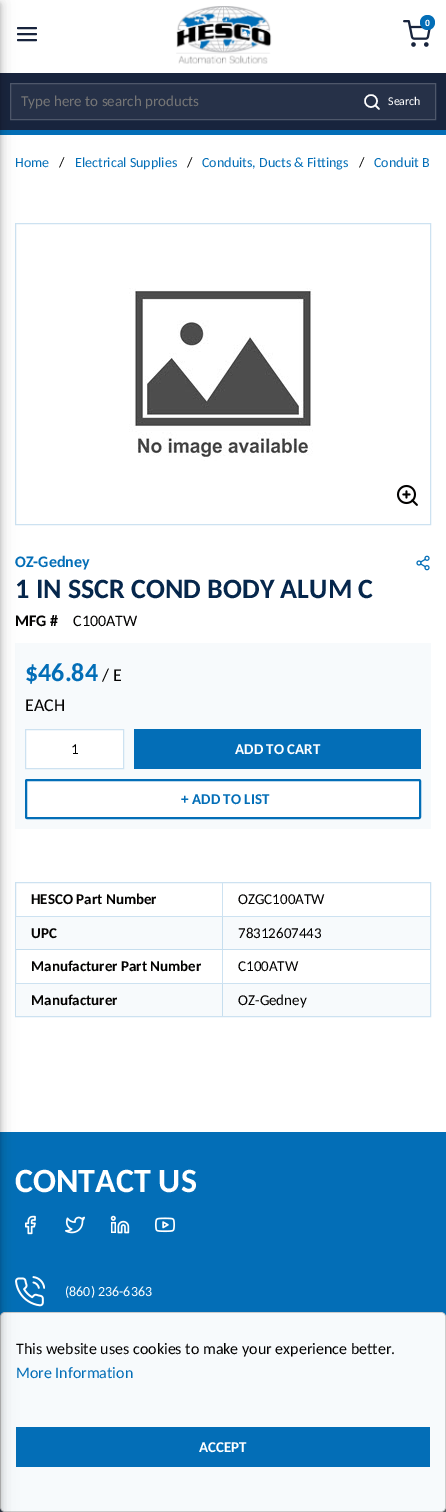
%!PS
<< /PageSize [446 1512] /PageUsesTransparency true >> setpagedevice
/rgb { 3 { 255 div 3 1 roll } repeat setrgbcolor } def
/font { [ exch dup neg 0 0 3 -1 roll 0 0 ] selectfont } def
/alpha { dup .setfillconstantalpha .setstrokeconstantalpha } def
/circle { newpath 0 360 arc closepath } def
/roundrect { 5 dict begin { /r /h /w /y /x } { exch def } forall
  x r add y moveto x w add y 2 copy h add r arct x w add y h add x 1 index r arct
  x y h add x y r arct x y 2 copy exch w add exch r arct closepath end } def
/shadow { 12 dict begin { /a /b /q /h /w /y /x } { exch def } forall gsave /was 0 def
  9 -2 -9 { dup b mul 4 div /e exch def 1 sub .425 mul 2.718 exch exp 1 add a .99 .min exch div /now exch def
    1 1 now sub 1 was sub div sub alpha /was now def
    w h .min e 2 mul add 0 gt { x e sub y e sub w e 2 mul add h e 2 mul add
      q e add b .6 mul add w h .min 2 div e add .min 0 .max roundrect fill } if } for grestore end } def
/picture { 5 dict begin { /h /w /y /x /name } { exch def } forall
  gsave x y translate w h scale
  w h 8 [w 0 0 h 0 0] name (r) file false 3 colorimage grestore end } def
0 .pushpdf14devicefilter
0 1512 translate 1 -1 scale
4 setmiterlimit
255 255 255 rgb
0 0 446 1512 rectfill
24 36 61 rgb
0 73 446 57 rectfill
3 110 183 rgb
0 130 446 5 rectfill
24 36 61 rgb
2 setlinewidth
1 setlinecap
1 setlinejoin
18 34 moveto 36 34 lineto 18 28 moveto 36 28 lineto 18 40 moveto 36 40 lineto stroke
38 49 72 rgb
10.5 83.5 moveto 435.5 83.5 lineto 435.5 119.5 lineto 10.5 119.5 lineto closepath gsave fill grestore
78 87 106 rgb
1 setlinewidth
0 setlinecap
0 setlinejoin
stroke
205 226 241 rgb
15.5 223.5 415 301 rectstroke
247 250 252 rgb
15 643 416 186 rectfill
255 255 255 rgb
25.5 729.5 moveto 123.5 729.5 lineto 123.5 768.5 lineto 25.5 768.5 lineto closepath gsave fill grestore
205 226 241 rgb
stroke
255 255 255 rgb
26 780 394 38 1 roundrect gsave fill grestore
3 110 183 rgb
2 setlinewidth
stroke
205 226 241 rgb
1 setlinewidth
15.5 882.5 415 134 rectstroke
[
  [16 916 414 1 205 226 241]
  [16 917 414 32 247 250 252]
  [16 949 414 1 198 222 238]
  [16 983 414 1 205 226 241]
  [16 984 414 32 247 250 252]
  [0 1132 446 185 3 110 183]
] { aload pop rgb rectfill } forall
(img/6.rgb) 25 1215 11 20 picture
(img/10.rgb) 15 1276 30 31 picture
24 36 61 rgb
0 1507 446 5 rectfill
gsave
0 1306 moveto 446 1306 lineto 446 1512 lineto 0 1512 lineto closepath 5 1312 moveto 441 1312 lineto 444 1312 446 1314 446 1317 curveto 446 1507 lineto 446 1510 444 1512 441 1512 curveto 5 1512 lineto 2 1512 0 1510 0 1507 curveto 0 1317 lineto 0 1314 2 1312 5 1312 curveto closepath eoclip newpath
102 102 102 rgb
3 1322 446 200 5 5 1 shadow
grestore
204 204 204 rgb
0.5 1312.5 445 199 4.5 roundrect stroke
247 250 252 rgb
1 1313 444 198 4 roundrect fill
3 110 183 rgb
16 1427 414 40 rectfill
0 0 0 rgb
-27 1 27 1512 0 9 0.12 shadow
-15 6 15 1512 0 5 0.14 shadow
-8 4 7 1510 0 2.5 0.2 shadow
(img/1.rgb) 176 6 96 58 picture
(img/2.rgb) 403 20 28 27 picture
3 110 183 rgb
427.5 22.5 7.5 circle fill
255 255 255 rgb
1.5 setlinewidth
371 101 6 circle stroke
1 setlinecap
1 setlinejoin
379 109 moveto 375.5 105.5 lineto stroke
(img/3.rgb) 129 288 184 173 picture
(img/4.rgb) 396 484 22 22 picture
(img/5.rgb) 416 555 14 16 picture
[
  [134 729 287 40 3 110 183]
  [222 883 1 33 205 226 241]
  [222 917 1 32 198 222 238]
  [222 950 1 33 205 226 241]
  [222 984 1 32 198 222 238]
] { aload pop rgb rectfill } forall
(img/7.rgb) 65 1216 20 18 picture
(img/8.rgb) 110 1215 20 19 picture
(img/9.rgb) 155 1217 20 16 picture
/LiberationSans-Bold 9 font
255 255 255 rgb
425 26 moveto (0) show
/Carlito-Regular 15 font
117 117 117 rgb
21 106 moveto (Type here to search products) show
/Carlito-Regular 12 font
255 255 255 rgb
388 105 moveto (Search) show
/Carlito-Regular 14 font
3 110 183 rgb
15 167 moveto (Home) show
2 1 0 rgb
59 167 moveto (/) show
3 110 183 rgb
75 167 moveto (Electrical Supplies) show
2 1 0 rgb
187 167 moveto (/) show
3 110 183 rgb
202 167 moveto (Conduits, Ducts & Fittings) show
2 1 0 rgb
359 167 moveto (/) show
3 110 183 rgb
374 167 moveto (Conduit B) show
/Carlito-Bold 16 font
15 567 moveto (OZ-Gedney) show
/Carlito-Bold 28 font
6 39 76 rgb
15 598 moveto (1 IN SSCR COND BODY ALUM C) show
/Carlito-Bold 16 font
2 1 0 rgb
15 626 moveto (MFG #) show
/Carlito-Regular 16 font
73 626 moveto (C100ATW) show
/Carlito-Bold 26 font
3 110 183 rgb
25 681 moveto ($46.84) show
/Carlito-Regular 18 font
2 1 0 rgb
102 681 moveto (/ E) show
25 711 moveto (EACH) show
/Carlito-Regular 15 font
71 754 moveto (1) show
/Carlito-Bold 15 font
255 255 255 rgb
235 754 moveto (ADD TO CART) show
3 110 183 rgb
181 804 moveto (+) show
192 804 moveto (ADD TO LIST) show
2 1 0 rgb
31 904 moveto (HESCO Part Number) show
/Carlito-Regular 15 font
238 904 moveto (OZGC100ATW) show
/Carlito-Bold 15 font
31 938 moveto (UPC) show
/Carlito-Regular 15 font
238 938 moveto (78312607443) show
/Carlito-Bold 15 font
31 971 moveto (Manufacturer Part Number) show
/Carlito-Regular 15 font
238 971 moveto (C100ATW) show
/Carlito-Bold 15 font
31 1005 moveto (Manufacturer) show
/Carlito-Regular 15 font
238 1005 moveto (OZ-Gedney) show
/Carlito-Bold 34 font
255 255 255 rgb
15 1192 moveto (CONTACT US) show
/Carlito-Regular 14 font
65 1296 moveto (\(860\) 236-6363) show
/Carlito-Regular 16 font
2 1 0 rgb
16 1354 moveto (This website uses cookies to make your experience better.) show
3 110 183 rgb
16 1378 moveto (More Information) show
/Carlito-Bold 15 font
255 255 255 rgb
199 1452 moveto (ACCEPT) show
.poppdf14devicefilter showpage
